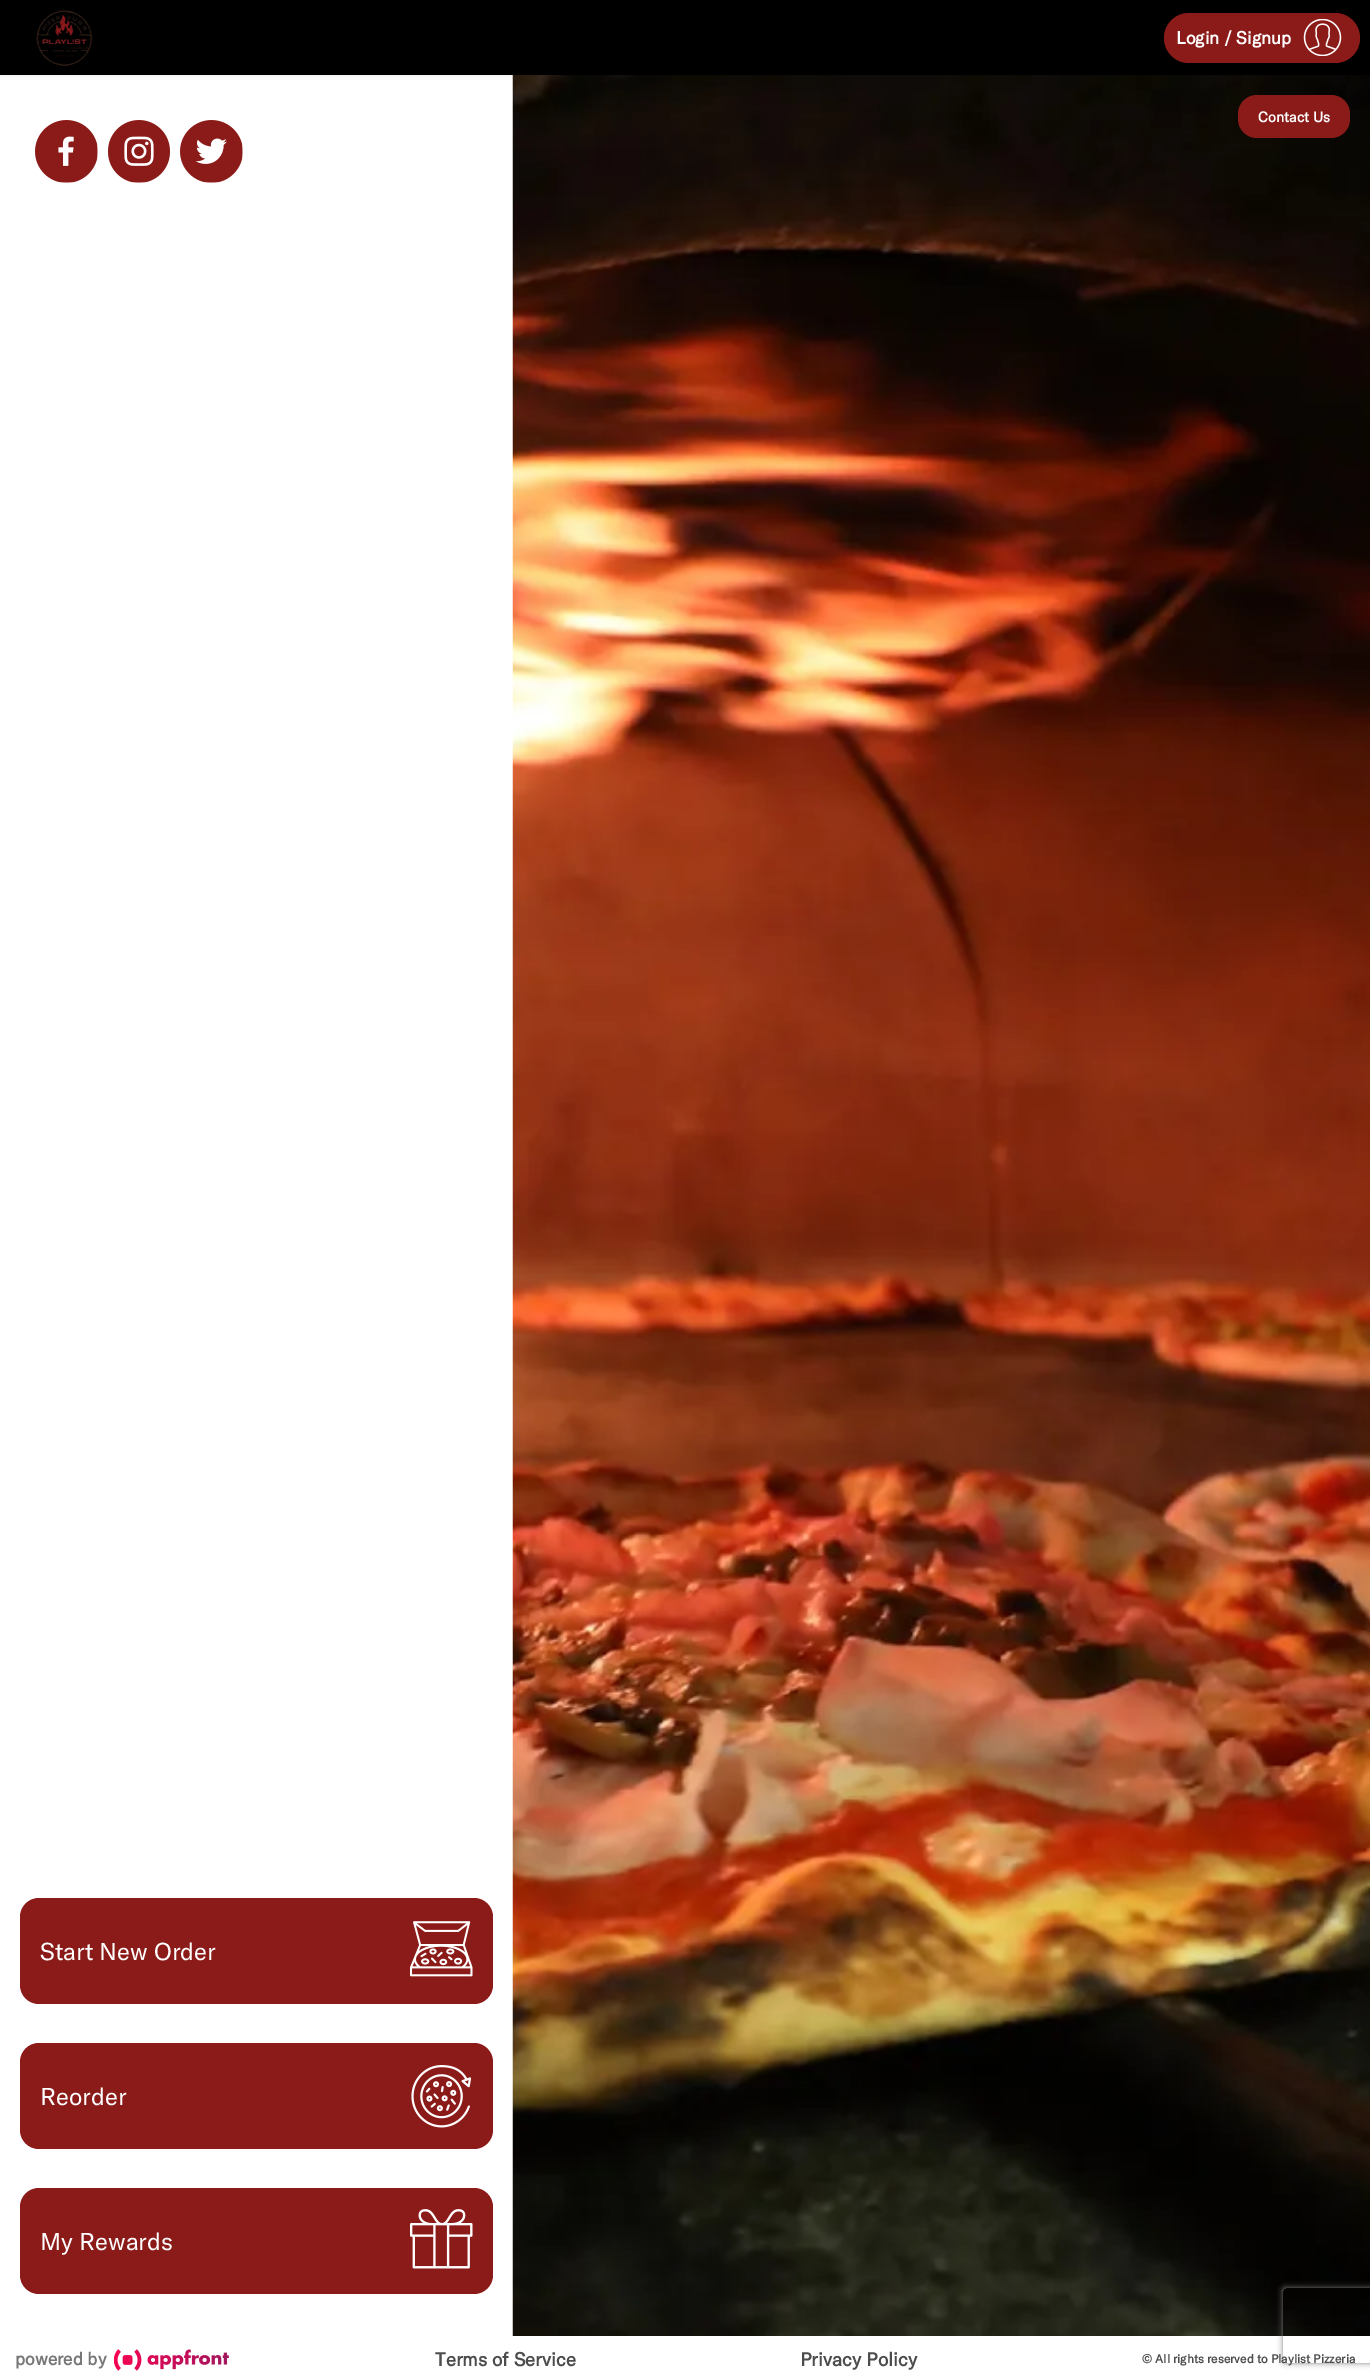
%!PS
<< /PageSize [1370 2379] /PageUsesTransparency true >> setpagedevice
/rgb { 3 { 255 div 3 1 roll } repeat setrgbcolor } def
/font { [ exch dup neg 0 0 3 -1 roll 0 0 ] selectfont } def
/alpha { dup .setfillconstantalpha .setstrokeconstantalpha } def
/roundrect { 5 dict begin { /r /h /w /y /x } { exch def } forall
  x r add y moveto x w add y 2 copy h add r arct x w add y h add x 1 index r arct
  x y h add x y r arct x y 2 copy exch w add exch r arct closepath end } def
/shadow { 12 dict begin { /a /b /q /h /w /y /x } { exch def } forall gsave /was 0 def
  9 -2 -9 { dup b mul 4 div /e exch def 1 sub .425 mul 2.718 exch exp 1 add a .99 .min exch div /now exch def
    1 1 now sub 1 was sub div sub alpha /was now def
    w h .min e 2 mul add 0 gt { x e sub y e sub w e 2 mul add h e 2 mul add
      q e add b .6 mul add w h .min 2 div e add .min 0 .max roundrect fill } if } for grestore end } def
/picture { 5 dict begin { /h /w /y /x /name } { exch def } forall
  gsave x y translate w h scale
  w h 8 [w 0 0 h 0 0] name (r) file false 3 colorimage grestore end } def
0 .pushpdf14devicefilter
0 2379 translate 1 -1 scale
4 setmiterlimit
255 255 255 rgb
0 0 1370 2379 rectfill
(img/3.rgb) 512 75 858 2261 picture
0 0 0 rgb
0 0 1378 75 0 2.5 0.1 shadow
0 0 1370 75 rectfill
(img/1.rgb) 36 10 57 56 picture
139 27 24 rgb
1164 13 196 50 25 roundrect fill
(img/2.rgb) 1303 19 39 37 picture
1238 95 112 43 19 roundrect fill
(img/4.rgb) 35 120 63 63 picture
(img/5.rgb) 108 120 62 63 picture
(img/6.rgb) 180 120 63 63 picture
20 1898 473 106 19 roundrect fill
(img/7.rgb) 410 1921 63 56 picture
20 2043 473 106 19 roundrect fill
(img/8.rgb) 411 2065 61 63 picture
20 2188 473 106 19 roundrect fill
(img/9.rgb) 410 2209 63 60 picture
(img/10.rgb) 114 2349 115 22 picture
gsave
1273 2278 moveto 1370 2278 lineto 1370 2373 lineto 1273 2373 lineto closepath 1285.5 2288 moveto 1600.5 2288 lineto 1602 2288 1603 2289 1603 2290.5 curveto 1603 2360.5 lineto 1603 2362 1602 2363 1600.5 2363 curveto 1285.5 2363 lineto 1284 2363 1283 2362 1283 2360.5 curveto 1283 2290.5 lineto 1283 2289 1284 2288 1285.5 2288 curveto closepath eoclip newpath
128 128 128 rgb
1283 2288 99 75 2.5 3 1 shadow
grestore
/GTAmerica-Bold 17.5 font
255 255 255 rgb
1176 44 moveto (Login / Signup) show
/GTAmerica-Bold 14.25 font
1258 122 moveto (Contact Us) show
/GTAmerica-Regular 24 font
[
  [(Start New Order) 40 1960]
  [(Reorder) 40 2105]
  [(My Rewards) 40 2250]
] { aload pop moveto show } forall
/GTAmerica-Bold 17.5 font
119 119 119 rgb
15 2365 moveto (powered by) show
/GTAmerica-Bold 18.75 font
76 76 76 rgb
435 2366 moveto (Terms of Service) show
800 2366 moveto (Privacy Policy) show
/GTAmerica-Bold 12 font
1142 2363 moveto (© All rights reserved to Playlist Pizzeria) show
.poppdf14devicefilter showpage
